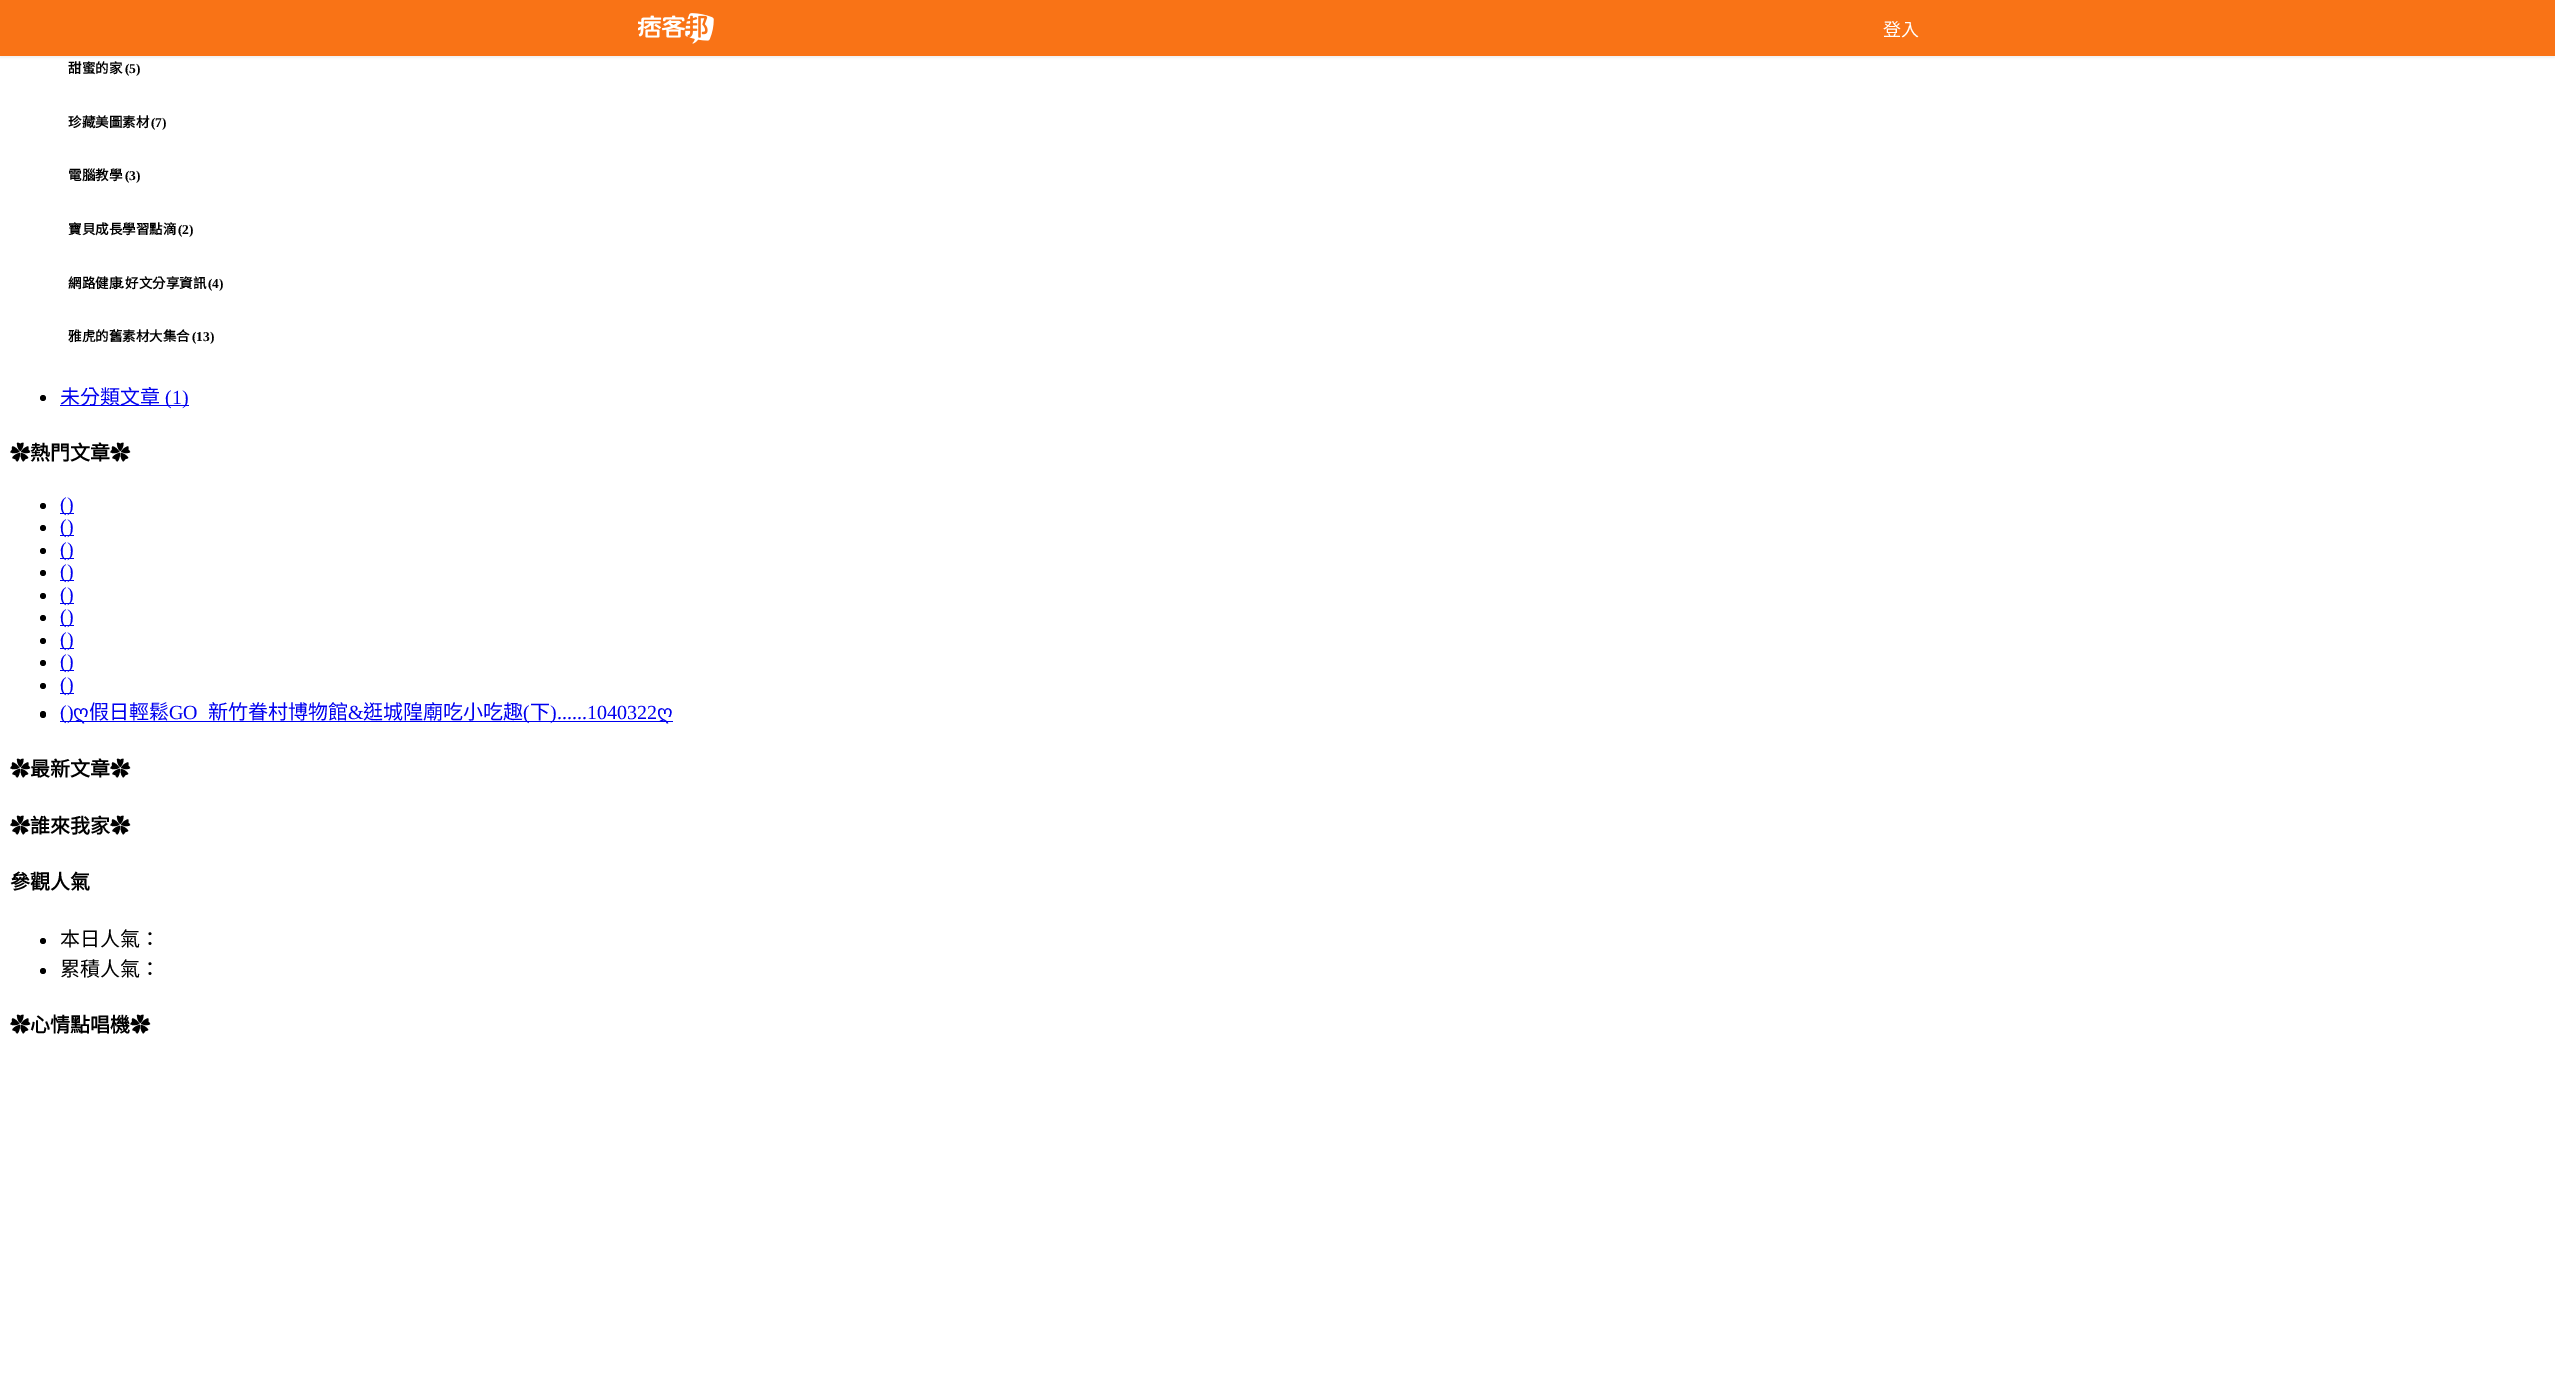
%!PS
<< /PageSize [2555 1384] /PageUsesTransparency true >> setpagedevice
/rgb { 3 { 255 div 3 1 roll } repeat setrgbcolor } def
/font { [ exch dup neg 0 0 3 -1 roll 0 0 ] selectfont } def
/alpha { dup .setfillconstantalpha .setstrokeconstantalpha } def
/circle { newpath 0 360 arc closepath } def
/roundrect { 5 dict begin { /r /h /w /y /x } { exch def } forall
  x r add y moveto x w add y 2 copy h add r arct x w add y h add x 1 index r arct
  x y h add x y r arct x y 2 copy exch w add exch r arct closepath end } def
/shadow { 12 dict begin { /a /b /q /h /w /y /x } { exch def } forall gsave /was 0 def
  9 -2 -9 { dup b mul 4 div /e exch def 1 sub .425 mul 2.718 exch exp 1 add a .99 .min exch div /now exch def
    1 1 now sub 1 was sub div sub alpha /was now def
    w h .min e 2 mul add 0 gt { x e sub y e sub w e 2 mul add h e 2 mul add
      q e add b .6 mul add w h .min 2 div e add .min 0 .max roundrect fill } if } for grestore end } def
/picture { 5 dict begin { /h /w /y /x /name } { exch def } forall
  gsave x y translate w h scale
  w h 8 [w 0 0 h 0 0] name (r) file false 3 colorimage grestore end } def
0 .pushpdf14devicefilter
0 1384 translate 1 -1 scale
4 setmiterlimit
255 255 255 rgb
0 0 2555 1384 rectfill
0 0 0 rgb
0 1 2555 57 0 1 0.05 shadow
249 115 22 rgb
0 0 2555 56 rectfill
(img/1.rgb) 638 13 76 31 picture
0 0 0 rgb
43 398 3 circle fill
0 0 238 rgb
60 405 129 1 rectfill
0 0 0 rgb
43 506 3 circle fill
0 0 238 rgb
60 513 6 1 rectfill
66 513 8 1 rectfill
0 0 0 rgb
43 528 3 circle fill
0 0 238 rgb
60 535 6 1 rectfill
66 535 8 1 rectfill
0 0 0 rgb
43 551 3 circle fill
0 0 238 rgb
60 558 6 1 rectfill
66 558 8 1 rectfill
0 0 0 rgb
43 573 3 circle fill
0 0 238 rgb
60 580 6 1 rectfill
66 580 8 1 rectfill
0 0 0 rgb
43 596 3 circle fill
0 0 238 rgb
60 603 6 1 rectfill
66 603 8 1 rectfill
0 0 0 rgb
43 618 3 circle fill
0 0 238 rgb
60 625 6 1 rectfill
66 625 8 1 rectfill
0 0 0 rgb
43 641 3 circle fill
0 0 238 rgb
60 648 6 1 rectfill
66 648 8 1 rectfill
0 0 0 rgb
43 663 3 circle fill
0 0 238 rgb
60 670 6 1 rectfill
66 670 8 1 rectfill
0 0 0 rgb
43 686 3 circle fill
0 0 238 rgb
60 693 6 1 rectfill
66 693 8 1 rectfill
0 0 0 rgb
40 711 6 7 3 roundrect fill
0 0 238 rgb
60 721 6 1 rectfill
66 721 607 1 rectfill
0 0 0 rgb
43 941 3 circle fill
43 971 3 circle fill
/NotoSansCJKTC-Regular 18 font
255 255 255 rgb
1883 36 moveto (登入) show
/NotoSansCJKTC-Bold 13.5 font
0 0 0 rgb
68 73 moveto (甜蜜的家) show
/LiberationSerif-Bold 13.5 font
125 73 moveto (\(5\)) show
/NotoSansCJKTC-Bold 13.5 font
68 127 moveto (珍藏美圖素材) show
/LiberationSerif-Bold 13.5 font
151 127 moveto (\(7\)) show
/NotoSansCJKTC-Bold 13.5 font
68 180 moveto (電腦教學) show
/LiberationSerif-Bold 13.5 font
125 180 moveto (\(3\)) show
/NotoSansCJKTC-Bold 13.5 font
68 234 moveto (寶貝成長學習點滴) show
/LiberationSerif-Bold 13.5 font
178 234 moveto (\(2\)) show
/NotoSansCJKTC-Bold 13.5 font
68 288 moveto (網路健康) show
/LiberationSerif-Bold 13.5 font
121 288 moveto (.) show
/NotoSansCJKTC-Bold 13.5 font
125 288 moveto (好文分享資訊) show
/LiberationSerif-Bold 13.5 font
208 288 moveto (\(4\)) show
/NotoSansCJKTC-Bold 13.5 font
68 341 moveto (雅虎的舊素材大集合) show
/LiberationSerif-Bold 13.5 font
192 341 moveto (\(13\)) show
/NotoSansCJKTC-Regular 20 font
0 0 238 rgb
60 404 moveto (未分類文章) show
/LiberationSerif-Regular 20 font
165 404 moveto (\(1\)) show
/NotoSansCJKTC-Bold 20 font
0 0 0 rgb
10 460 moveto (✿熱門文章✿) show
/LiberationSerif-Regular 20 font
0 0 238 rgb
[
  [(\() 60 511]
  [(\)) 67 511]
  [(\() 60 533]
  [(\)) 67 533]
  [(\() 60 556]
  [(\)) 67 556]
  [(\() 60 578]
  [(\)) 67 578]
  [(\() 60 601]
  [(\)) 67 601]
  [(\() 60 623]
  [(\)) 67 623]
  [(\() 60 646]
  [(\)) 67 646]
  [(\() 60 668]
  [(\)) 67 668]
  [(\() 60 691]
  [(\)) 67 691]
  [(\() 60 719]
  [(\)) 67 719]
] { aload pop moveto show } forall
/DejaVuSans-Regular 20 font
73 719 moveto (ღ) show
/NotoSansCJKTC-Regular 20 font
89 719 moveto (假日輕鬆) show
/LiberationSerif-Regular 20 font
169 719 moveto (GO) show
/NotoSansCJKTC-Regular 20 font
208 719 moveto (新竹眷村博物館) show
/LiberationSerif-Regular 20 font
348 719 moveto (&) show
/NotoSansCJKTC-Regular 20 font
363 719 moveto (逛城隍廟吃小吃趣) show
/LiberationSerif-Regular 20 font
523 719 moveto (\() show
/NotoSansCJKTC-Regular 20 font
530 719 moveto (下) show
/LiberationSerif-Regular 20 font
550 719 moveto (\)......1040322) show
/DejaVuSans-Regular 20 font
657 719 moveto (ღ) show
/NotoSansCJKTC-Bold 20 font
0 0 0 rgb
[
  [(✿最新文章✿) 10 776]
  [(✿誰來我家✿) 10 833]
  [(參觀人氣) 10 889]
] { aload pop moveto show } forall
/NotoSansCJKTC-Regular 20 font
60 946 moveto (本日人氣：) show
60 976 moveto (累積人氣：) show
/NotoSansCJKTC-Bold 20 font
10 1032 moveto (✿心情點唱機✿) show
.poppdf14devicefilter showpage
